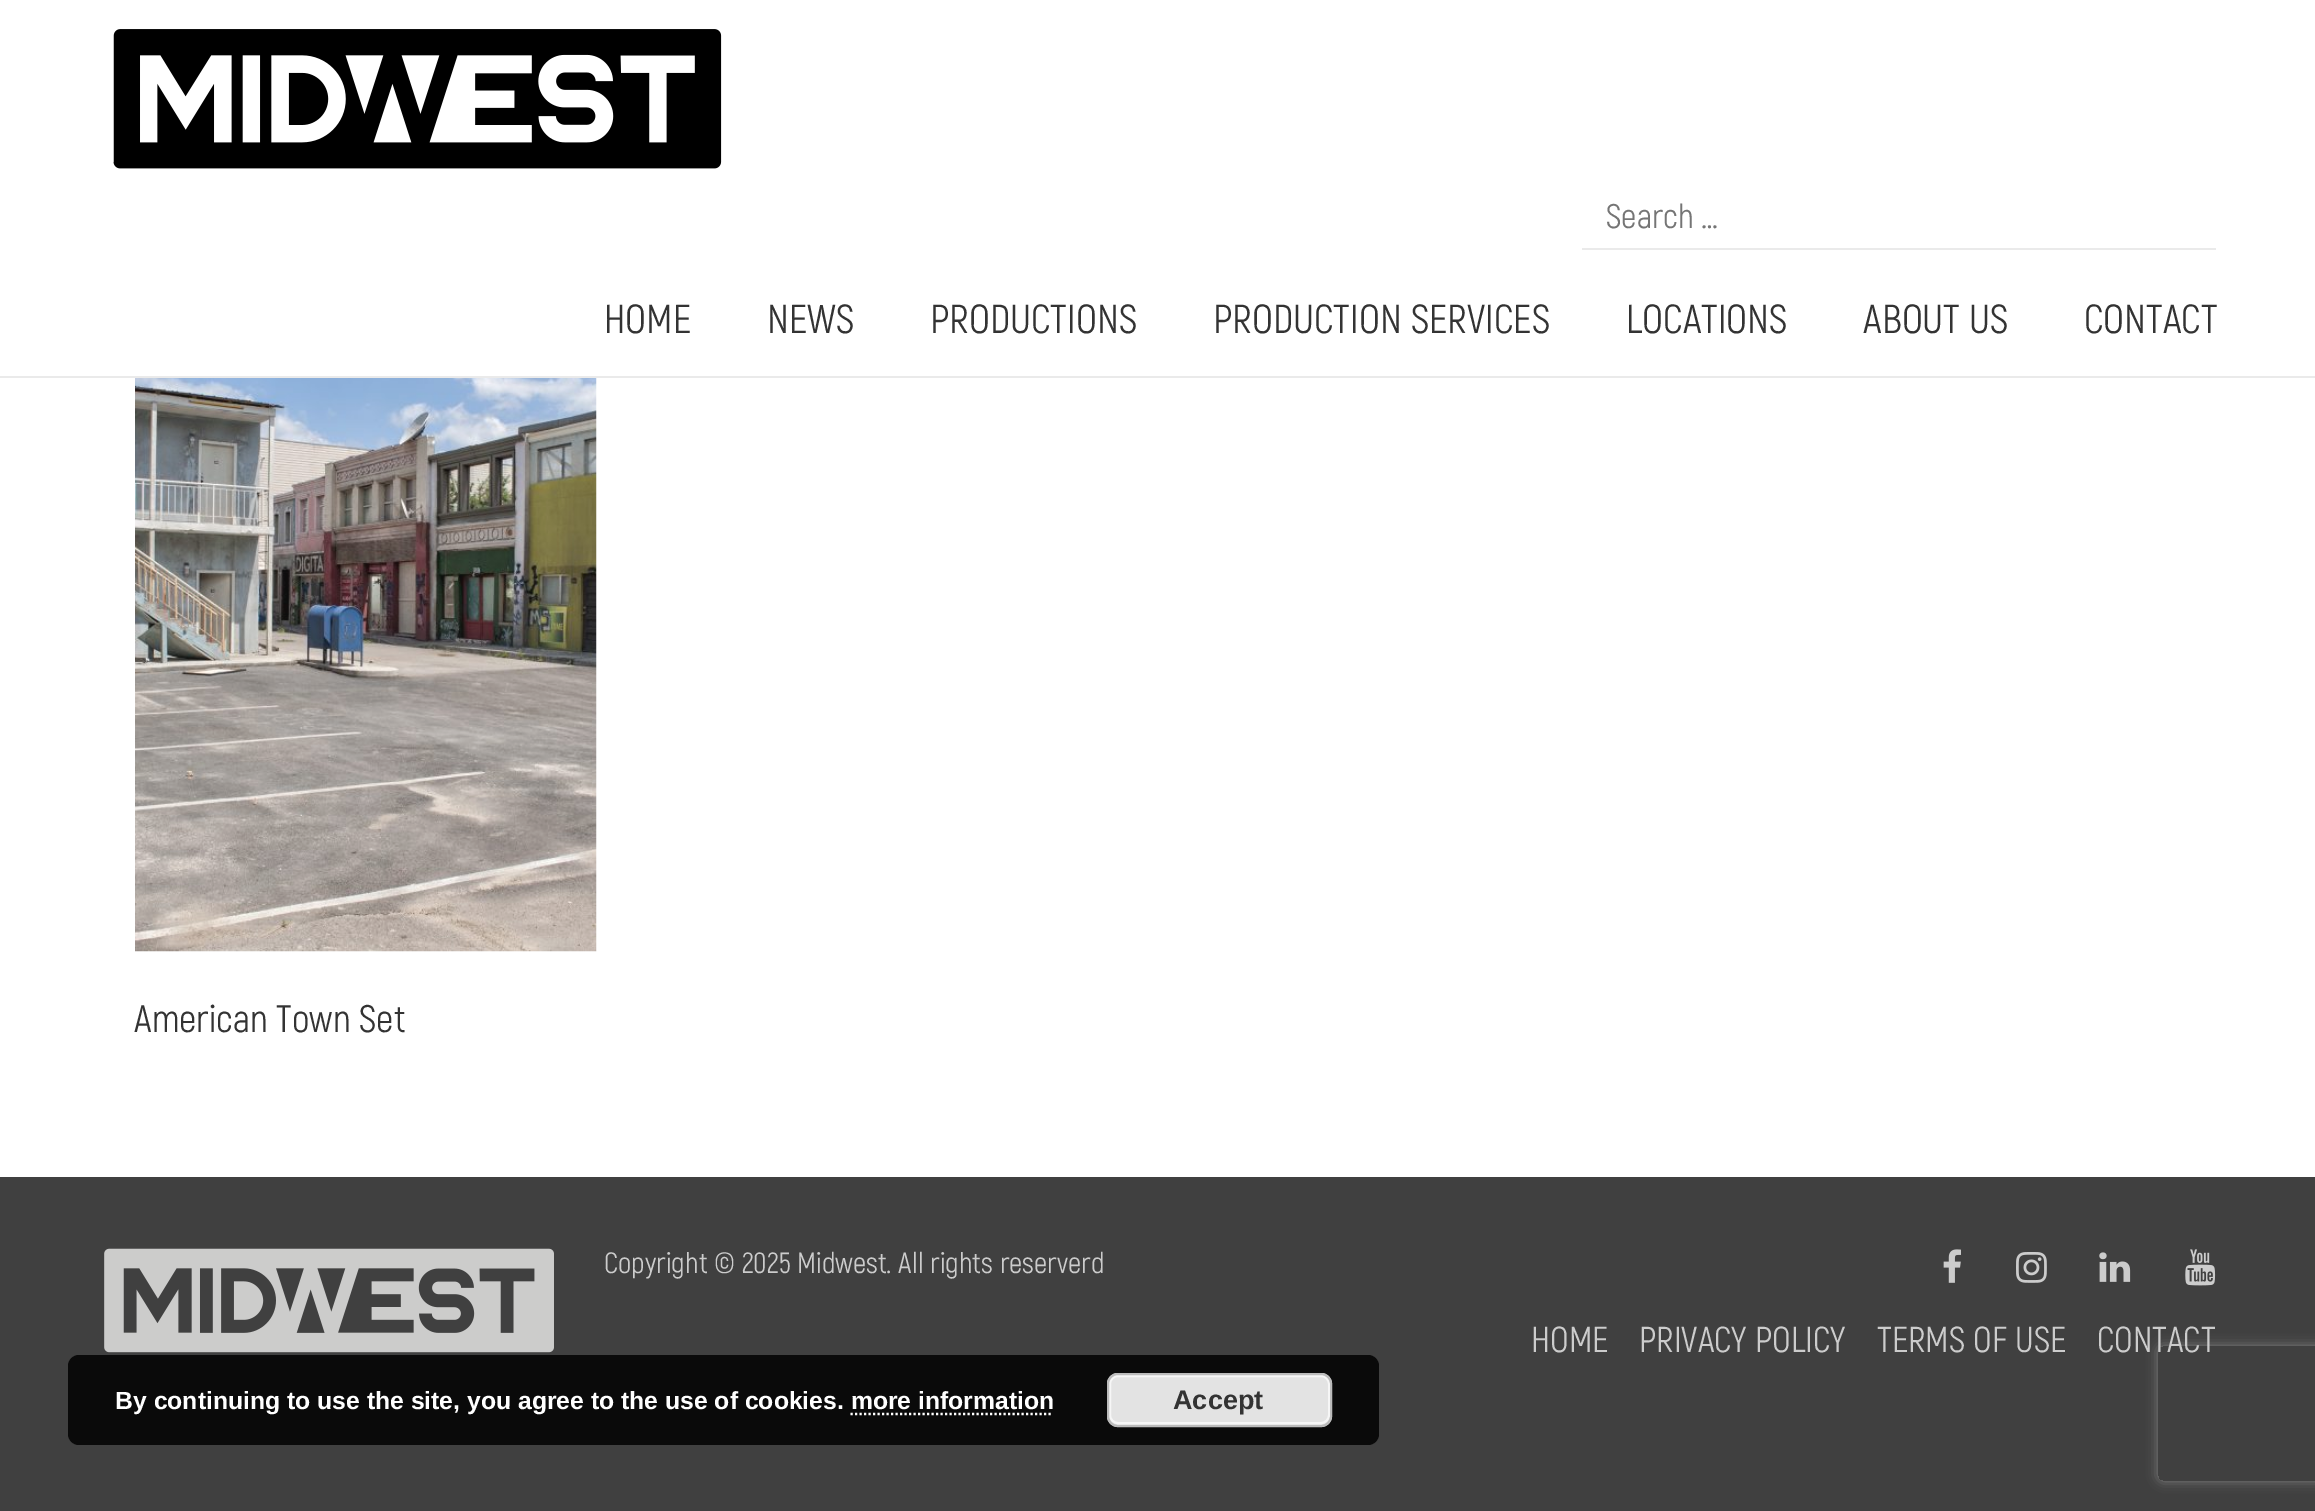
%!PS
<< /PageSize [2315 1511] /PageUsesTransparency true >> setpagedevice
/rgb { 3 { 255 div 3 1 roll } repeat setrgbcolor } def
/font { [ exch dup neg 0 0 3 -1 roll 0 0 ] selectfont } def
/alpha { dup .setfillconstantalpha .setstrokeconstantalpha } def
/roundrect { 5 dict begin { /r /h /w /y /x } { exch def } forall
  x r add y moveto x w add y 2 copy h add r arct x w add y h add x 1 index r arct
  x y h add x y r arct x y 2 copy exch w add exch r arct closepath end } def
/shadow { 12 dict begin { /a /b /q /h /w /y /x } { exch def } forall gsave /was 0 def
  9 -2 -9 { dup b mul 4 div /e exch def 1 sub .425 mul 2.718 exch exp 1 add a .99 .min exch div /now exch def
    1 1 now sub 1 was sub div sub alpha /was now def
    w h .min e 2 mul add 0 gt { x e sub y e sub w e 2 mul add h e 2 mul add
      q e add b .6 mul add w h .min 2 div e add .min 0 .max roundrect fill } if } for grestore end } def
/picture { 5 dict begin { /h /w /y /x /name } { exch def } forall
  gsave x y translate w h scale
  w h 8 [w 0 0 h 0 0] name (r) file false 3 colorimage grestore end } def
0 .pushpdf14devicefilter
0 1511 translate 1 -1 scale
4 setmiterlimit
255 255 255 rgb
0 0 2315 1511 rectfill
234 234 234 rgb
0 376 2315 2 rectfill
(img/1.rgb) 113 29 609 140 picture
1582 248 634 2 rectfill
(img/2.rgb) 135 378 462 574 picture
64 64 64 rgb
0 1177 2315 334 rectfill
(img/3.rgb) 104 1248 450 105 picture
(img/4.rgb) 1943 1249 18 34 picture
(img/5.rgb) 2016 1252 31 31 picture
(img/6.rgb) 2099 1252 32 30 picture
(img/7.rgb) 2185 1249 31 37 picture
10 10 10 rgb
68 1355 1311 90 11 roundrect fill
227 227 227 rgb
1107 1373 225 54 11 roundrect fill
246 246 246 rgb
2 setlinewidth
1110 1376 219 47 8 roundrect stroke
187 187 187 rgb
1108 1374 223 52 10 roundrect stroke
255 255 255 rgb
2.2 setlinewidth
[2.25 2.25] 0 setdash
850.5 1414 moveto 1053 1414 lineto stroke
gsave
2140 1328 moveto 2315 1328 lineto 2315 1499 lineto 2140 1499 lineto closepath 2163 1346 moveto 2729 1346 lineto 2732 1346 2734 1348 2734 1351 curveto 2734 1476 lineto 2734 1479 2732 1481 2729 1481 curveto 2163 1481 lineto 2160 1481 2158 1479 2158 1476 curveto 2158 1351 lineto 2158 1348 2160 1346 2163 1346 curveto closepath eoclip newpath
128 128 128 rgb
2158 1346 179 135 5 5.5 1 shadow
grestore
/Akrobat-Regular 34 font
117 117 117 rgb
1606 228 moveto (Search …) show
/Akrobat-Regular 40.5 font
51 51 51 rgb
[
  [(HOME) 604 333]
  [(NEWS) 767 333]
  [(PRODUCTIONS) 930 333]
  [(PRODUCTION SERVICES) 1213 333]
  [(LOCATIONS) 1626 333]
  [(ABOUT US) 1863 333]
  [(CONTACT) 2084 333]
] { aload pop moveto show } forall
/Akrobat-Regular 38.25 font
134 1032 moveto (American Town Set) show
/Akrobat-Regular 29.25 font
204 204 204 rgb
604 1273 moveto (Copyright © 2025 Midwest. All rights reserverd) show
/Akrobat-Regular 36 font
[
  [(HOME) 1531 1352]
  [(PRIVACY POLICY) 1639 1352]
  [(TERMS OF USE) 1877 1352]
  [(CONTACT) 2097 1352]
] { aload pop moveto show } forall
/LiberationSans-Bold 24.75 font
255 255 255 rgb
115 1409 moveto (By continuing to use the site, you agree to the use of cookies. more information) show
/LiberationSans-Bold 27 font
51 51 51 rgb
1173 1409 moveto (Accept) show
.poppdf14devicefilter showpage
